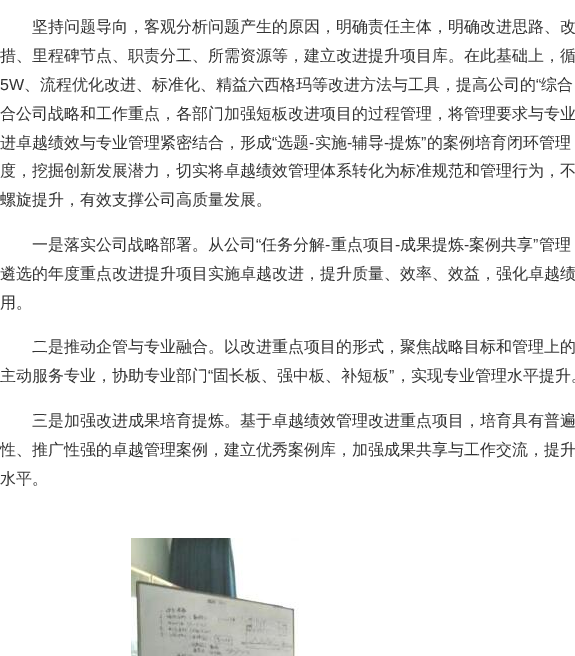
%!PS
<< /PageSize [575 656] >> setpagedevice
/rgb { 3 { 255 div 3 1 roll } repeat setrgbcolor } def
/font { [ exch dup neg 0 0 3 -1 roll 0 0 ] selectfont } def
/picture { 5 dict begin { /h /w /y /x /name } { exch def } forall
  gsave x y translate w h scale
  w h 8 [w 0 0 h 0 0] name (r) file false 3 colorimage grestore end } def
0 656 translate 1 -1 scale
4 setmiterlimit
255 255 255 rgb
0 0 575 656 rectfill
(img/1.rgb) 131 538 168 118 picture
/WenQuanYiZenHei-Medium 16 font
51 51 51 rgb
32 32 moveto (坚持问题导向，客观分析问题产生的原因，明确责任主体，明确改进思路、改) show
0 61 moveto (措、里程碑节点、职责分工、所需资源等，建立改进提升项目库。在此基础上，循) show
/LiberationSans-Regular 16 font
0 90 moveto (5W) show
/WenQuanYiZenHei-Medium 16 font
24 90 moveto (、流程优化改进、标准化、精益六西格玛等改进方法与工具，提高公司的) show
/LiberationSans-Regular 16 font
536 90 moveto (“) show
/WenQuanYiZenHei-Medium 16 font
[
  [(综合) 541 90]
  [(合公司战略和工作重点，各部门加强短板改进项目的过程管理，将管理要求与专业) 0 119]
  [(进卓越绩效与专业管理紧密结合，形成) 0 148]
] { aload pop moveto show } forall
/LiberationSans-Regular 16 font
272 148 moveto (“) show
/WenQuanYiZenHei-Medium 16 font
[
  [(选题) 277 148]
  [(实施) 315 148]
  [(辅导) 352 148]
  [(提炼) 389 148]
] { aload pop moveto show } forall
/LiberationSans-Regular 16 font
421 148 moveto (”) show
/WenQuanYiZenHei-Medium 16 font
427 148 moveto (的案例培育闭环管理) show
/LiberationSans-Regular 16 font
[
  [(-) 309 148]
  [(-) 347 148]
  [(-) 384 148]
] { aload pop moveto show } forall
/WenQuanYiZenHei-Medium 16 font
[
  [(度，挖掘创新发展潜力，切实将卓越绩效管理体系转化为标准规范和管理行为，不) 0 176]
  [(螺旋提升，有效支撑公司高质量发展。) 0 205]
  [(一是落实公司战略部署。从公司) 32 250]
] { aload pop moveto show } forall
/LiberationSans-Regular 16 font
256 250 moveto (“) show
/WenQuanYiZenHei-Medium 16 font
[
  [(任务分解) 261 250]
  [(重点项目) 331 250]
  [(成果提炼) 400 250]
  [(案例共享) 469 250]
] { aload pop moveto show } forall
/LiberationSans-Regular 16 font
533 250 moveto (”) show
/WenQuanYiZenHei-Medium 16 font
539 250 moveto (管理) show
/LiberationSans-Regular 16 font
[
  [(-) 325 250]
  [(-) 395 250]
  [(-) 464 250]
] { aload pop moveto show } forall
/WenQuanYiZenHei-Medium 16 font
[
  [(遴选的年度重点改进提升项目实施卓越改进，提升质量、效率、效益，强化卓越绩) 0 279]
  [(用。) 0 308]
  [(二是推动企管与专业融合。以改进重点项目的形式，聚焦战略目标和管理上的) 32 352]
  [(主动服务专业，协助专业部门) 0 381]
] { aload pop moveto show } forall
/LiberationSans-Regular 16 font
208 381 moveto (“) show
/WenQuanYiZenHei-Medium 16 font
213 381 moveto (固长板、强中板、补短板) show
/LiberationSans-Regular 16 font
389 381 moveto (”) show
/WenQuanYiZenHei-Medium 16 font
[
  [(，实现专业管理水平提升。) 395 381]
  [(三是加强改进成果培育提炼。基于卓越绩效管理改进重点项目，培育具有普遍) 32 426]
  [(性、推广性强的卓越管理案例，建立优秀案例库，加强成果共享与工作交流，提升) 0 455]
  [(水平。) 0 484]
] { aload pop moveto show } forall
showpage
